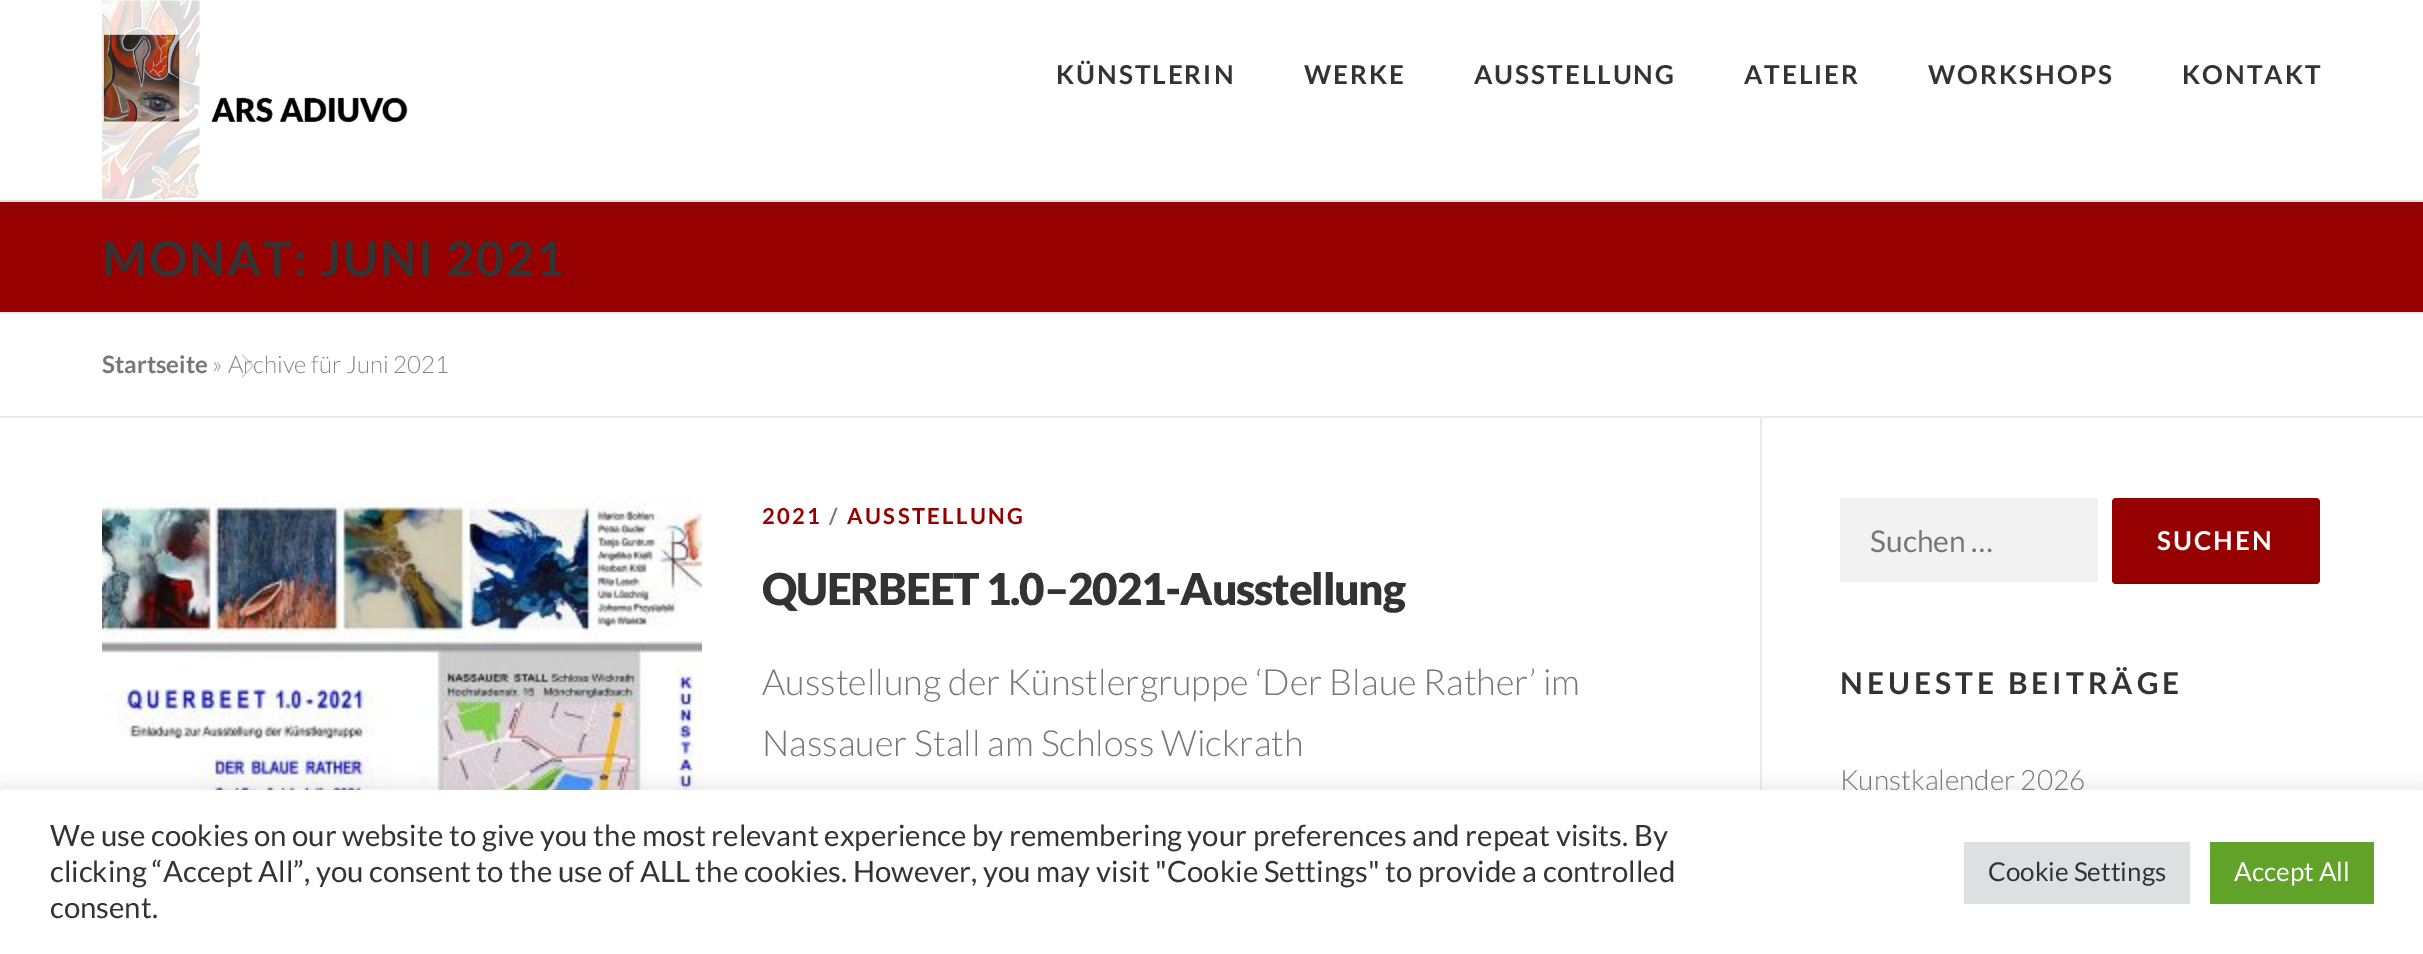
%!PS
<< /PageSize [2423 954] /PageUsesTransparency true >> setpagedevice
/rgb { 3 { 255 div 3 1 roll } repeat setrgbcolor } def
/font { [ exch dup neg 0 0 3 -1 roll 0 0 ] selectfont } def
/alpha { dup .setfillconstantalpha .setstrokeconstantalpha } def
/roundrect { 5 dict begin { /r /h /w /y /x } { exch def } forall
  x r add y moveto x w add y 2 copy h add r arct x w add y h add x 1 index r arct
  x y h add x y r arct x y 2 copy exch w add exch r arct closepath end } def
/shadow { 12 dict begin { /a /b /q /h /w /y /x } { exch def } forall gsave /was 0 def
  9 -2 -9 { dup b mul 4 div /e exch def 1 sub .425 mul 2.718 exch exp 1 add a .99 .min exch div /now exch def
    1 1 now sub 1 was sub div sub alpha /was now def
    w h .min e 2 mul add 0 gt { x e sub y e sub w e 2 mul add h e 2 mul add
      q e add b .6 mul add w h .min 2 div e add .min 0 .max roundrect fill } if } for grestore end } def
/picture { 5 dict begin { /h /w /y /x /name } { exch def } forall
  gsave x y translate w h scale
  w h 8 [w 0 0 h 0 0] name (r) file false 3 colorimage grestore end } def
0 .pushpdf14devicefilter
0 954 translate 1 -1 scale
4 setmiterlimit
255 255 255 rgb
0 0 2423 954 rectfill
233 233 233 rgb
0 200 2423 2 rectfill
150 0 0 rgb
0 202 2423 110 rectfill
50 50 50 rgb
0 10 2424 200 0 10 0.06 shadow
255 255 255 rgb
0 2 2423 198 rectfill
(img/1.rgb) 102 0 306 200 picture
233 233 233 rgb
0 312 2423 2 rectfill
0 416 2423 2 rectfill
204 204 204 rgb
242 378 moveto 242 354 lineto 254 366 lineto closepath fill
255 255 255 rgb
242 376 moveto 242 356 lineto 252 366 lineto closepath fill
233 233 233 rgb
1760 418 2 372 rectfill
(img/2.rgb) 102 498 600 292 picture
242 242 242 rgb
1840 498 258 84 rectfill
150 0 0 rgb
2112 498 208 86 4 roundrect fill
0.1 alpha
0 0 0 rgb
2112 578 moveto 2112 581 2112 583 2115 584 curveto 2316 584 lineto 2320 584 2320 581 2320 578 curveto 2320 580 2318 582 2316 582 curveto 2116 582 lineto 2114 582 2112 580 2112 578 curveto closepath fill
1 alpha
172 171 171 rgb
0 788 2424 164 0 10 0.3 shadow
/Lato-Bold 26 font
51 51 51 rgb
1056 84 moveto 2 0 (KÜNSTLERIN) ashow
1304 84 moveto 2 0 (WERKE) ashow
1474 84 moveto 2 0 (AUSSTELLUNG) ashow
1744 84 moveto 2 0 (ATELIER) ashow
1928 84 moveto 2 0 (WORKSHOPS) ashow
2182 84 moveto 2 0 (KONTAKT) ashow
/Lato-Bold 48 font
102 276 moveto 2 0 (MONAT: JUNI 2021) ashow
/Lato-Bold 24 font
119 119 119 rgb
102 373 moveto (Startseite) show
/Lato-Light 24 font
133 133 133 rgb
212 373 moveto (») show
228 373 moveto (Archive für Juni 2021) show
/Lato-Bold 22 font
150 0 0 rgb
762 524 moveto 2.4 0 (2021) ashow
119 119 119 rgb
829 524 moveto 2.4 0 (/) ashow
150 0 0 rgb
847 524 moveto 2.4 0 (AUSSTELLUNG) ashow
/Lato-Black 44 font
51 51 51 rgb
762 605 moveto -1.2 0 (QUERBEET 1.0–2021-Ausstellung) ashow
/Lato-Light 36 font
119 119 119 rgb
762 695 moveto (Ausstellung der Künstlergruppe ‘Der Blaue Rather’ im) show
762 756 moveto (Nassauer Stall am Schloss Wickrath) show
/Lato-Regular 30 font
1870 552 moveto (Suchen …) show
/Lato-Bold 26 font
255 255 255 rgb
2157 550 moveto 2 0 (SUCHEN) ashow
/Lato-Bold 30 font
51 51 51 rgb
1840 694 moveto 4 0 (NEUESTE BEITRÄGE) ashow
/Lato-Light 28 font
119 119 119 rgb
1840 790 moveto (Kunstkalender 2026) show
255 255 255 rgb
0 790 2423 164 rectfill
/Lato-Regular 29.33 font
51 51 51 rgb
[
  [(We use cookies on our website to give you the most relevant experience by remembering your preferences and repeat visits. By) 50 846]
  [(clicking “Accept All”, you consent to the use of ALL the cookies. However, you may visit "Cookie Settings" to provide a controlled) 50 882]
  [(consent.) 50 918]
] { aload pop moveto show } forall
222 223 224 rgb
1964 842 226 62 rectfill
/Lato-Regular 26 font
51 51 51 rgb
1988 881 moveto (Cookie Settings) show
97 162 41 rgb
2210 842 164 62 rectfill
255 255 255 rgb
2234 881 moveto (Accept All) show
.poppdf14devicefilter showpage
